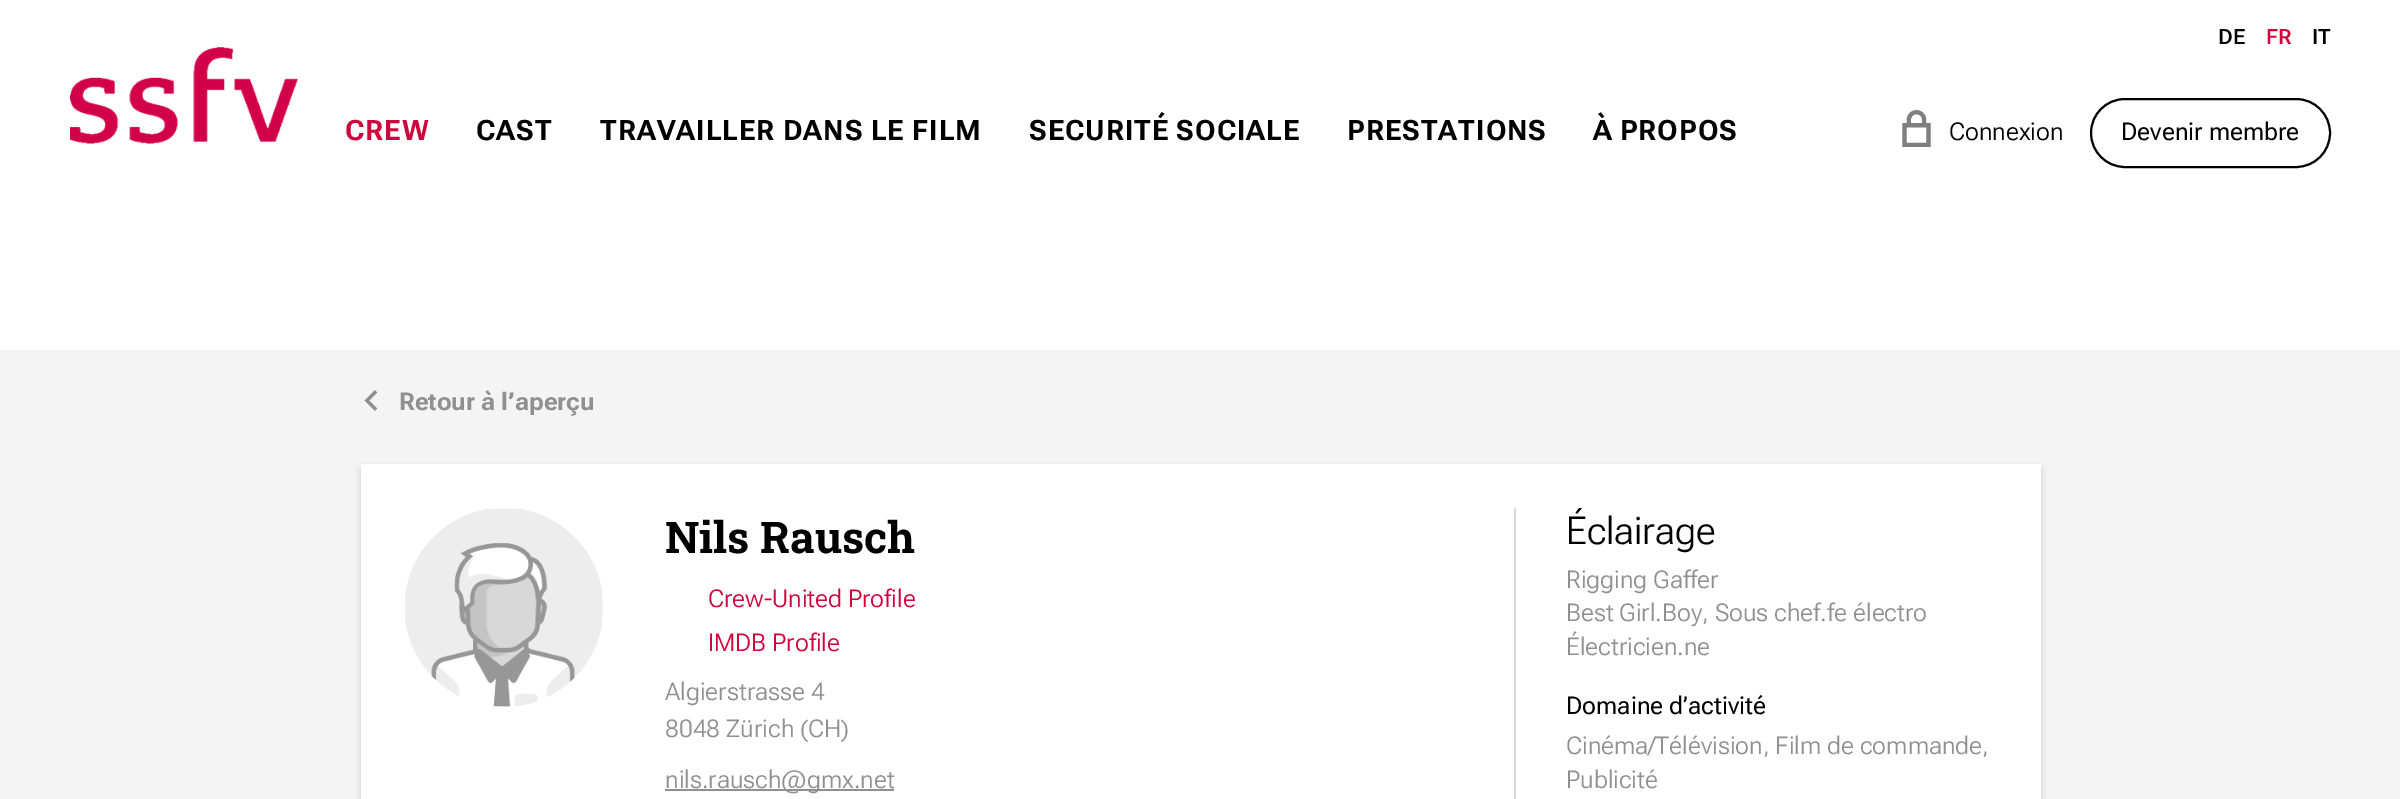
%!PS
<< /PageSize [2400 799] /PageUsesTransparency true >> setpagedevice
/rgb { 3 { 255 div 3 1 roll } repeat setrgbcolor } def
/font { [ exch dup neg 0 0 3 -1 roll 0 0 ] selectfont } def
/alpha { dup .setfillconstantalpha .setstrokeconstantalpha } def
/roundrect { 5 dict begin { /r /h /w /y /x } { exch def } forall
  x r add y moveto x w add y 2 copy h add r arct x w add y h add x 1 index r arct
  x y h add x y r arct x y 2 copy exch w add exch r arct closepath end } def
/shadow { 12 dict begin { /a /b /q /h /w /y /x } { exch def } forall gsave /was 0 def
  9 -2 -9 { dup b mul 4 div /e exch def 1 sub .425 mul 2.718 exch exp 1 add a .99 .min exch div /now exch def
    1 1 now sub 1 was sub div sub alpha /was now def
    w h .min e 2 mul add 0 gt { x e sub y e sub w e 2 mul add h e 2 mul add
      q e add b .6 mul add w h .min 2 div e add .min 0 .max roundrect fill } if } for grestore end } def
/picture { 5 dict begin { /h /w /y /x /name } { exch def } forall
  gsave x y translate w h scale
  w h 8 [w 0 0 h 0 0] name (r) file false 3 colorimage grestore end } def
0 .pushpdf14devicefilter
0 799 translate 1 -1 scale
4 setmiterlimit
245 244 244 rgb
0 0 2400 799 rectfill
255 255 255 rgb
0 0 2400 350 rectfill
(img/1.rgb) 70 47 228 97 picture
0 0 0 rgb
2 setlinewidth
2091 99 239 68 34 roundrect stroke
361 469 1680 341 0 3.5 0.15 shadow
255 255 255 rgb
361 464 1680 335 rectfill
(img/2.rgb) 405 508 198 199 picture
145 144 144 rgb
665 789 229 2 rectfill
216 216 216 rgb
1514 508 2 291 rectfill
/RobotoFlex-Bold 28 font
208 4 60 rgb
345 140 moveto 1.05 0 (CREW) ashow
0 0 0 rgb
476 140 moveto 1.05 0 (CAST) ashow
600 140 moveto -0.5 0 32 1.05 0 (TRAVAILLER DANS LE FILM) awidthshow
1029 140 moveto -1 0 32 1.05 0 (SECURITÉ SOCIALE) awidthshow
1347 140 moveto 1.05 0 (PRESTATIONS) ashow
1593 140 moveto -1 0 32 1.05 0 (À PROPOS) awidthshow
/RobotoFlex-SemiBold 21 font
2218 44 moveto (DE) show
208 4 60 rgb
2266 44 moveto (FR) show
0 0 0 rgb
2312 44 moveto (IT) show
/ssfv-Regular 37 font
127 127 127 rgb
1898 147 moveto (e) show
/RobotoFlex-Light 24.5 font
0 0 0 rgb
1949 140 moveto (Connexion) show
/RobotoFlex-Regular 24.5 font
2121 140 moveto (Devenir membre) show
/ssfv-Regular 21 font
145 144 144 rgb
361 411 moveto (j) show
/RobotoFlex-Bold 24.5 font
399 410 moveto (Retour à l’aperçu) show
/RobotoSlab-Bold 43.75 font
0 0 0 rgb
665 553 moveto (Nils Rausch) show
/RobotoFlex-Light 24.5 font
208 4 60 rgb
708 607 moveto (Crew-United Profile) show
708 651 moveto (IMDB Profile) show
145 144 144 rgb
[
  [(Algierstrasse 4) 665 700]
  [(8048 Zürich \(CH\)) 665 737]
  [(nils.rausch@gmx.net) 665 788]
] { aload pop moveto show } forall
gsave
1566 508 431 288 rectclip
/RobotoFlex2-Light 38.5 font
0 0 0 rgb
1566 544 moveto (Éclairage) show
grestore
[
  [(Rigging Gaffer) 1566 588]
  [(Best Girl.Boy, Sous chef.fe électro) 1566 621]
  [(Électricien.ne) 1566 655]
] { aload pop moveto show } forall
/RobotoFlex-Regular 24.5 font
0 0 0 rgb
1566 714 moveto (Domaine d’activité) show
/RobotoFlex-Light 24.5 font
145 144 144 rgb
1566 754 moveto (Cinéma/Télévision, Film de commande,) show
1566 788 moveto (Publicité) show
.poppdf14devicefilter showpage
